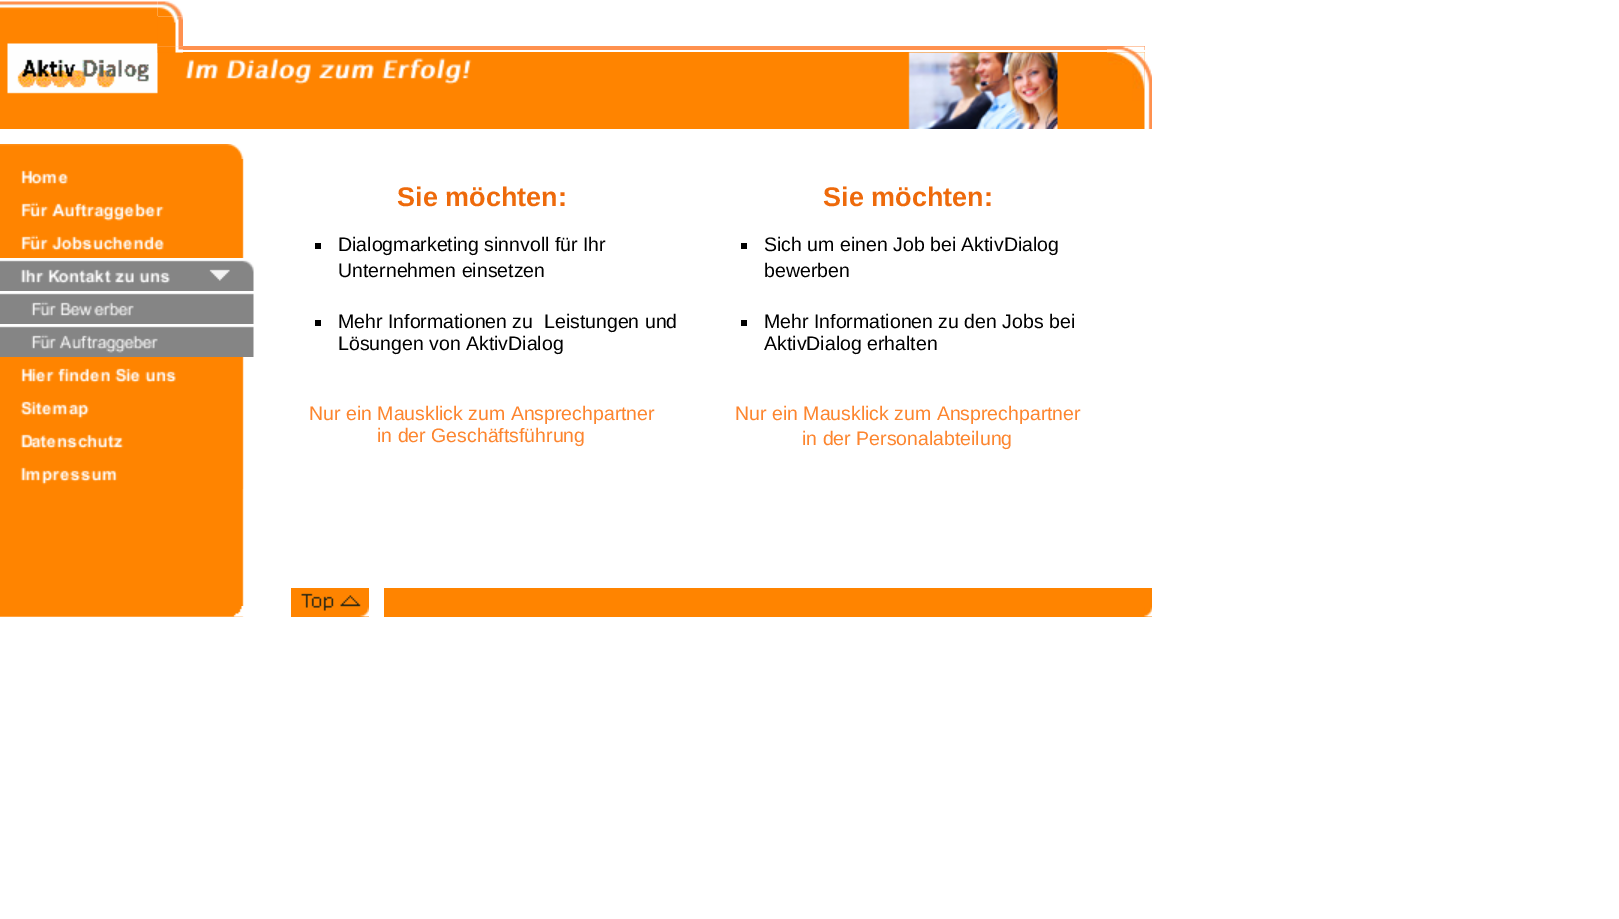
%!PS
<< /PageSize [1619 919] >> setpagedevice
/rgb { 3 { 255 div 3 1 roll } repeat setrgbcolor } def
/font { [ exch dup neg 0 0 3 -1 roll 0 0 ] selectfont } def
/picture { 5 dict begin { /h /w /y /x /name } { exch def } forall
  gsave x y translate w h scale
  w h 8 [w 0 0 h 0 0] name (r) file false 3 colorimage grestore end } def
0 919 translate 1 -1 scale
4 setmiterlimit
255 255 255 rgb
0 0 1619 919 rectfill
(img/1.rgb) 0 1 158 15 picture
255 132 0 rgb
0 16 158 106 rectfill
(img/2.rgb) 157 1 26 16 picture
(img/5.rgb) 157 46 26 6 picture
(img/4.rgb) 7 43 151 51 picture
(img/3.rgb) 157 16 26 31 picture
158 52 662 70 rectfill
(img/6.rgb) 157 46 26 7 picture
255 145 79 rgb
183 46 962 4 rectfill
255 132 0 rgb
820 52 325 77 rectfill
(img/7.rgb) 1107 46 38 7 picture
(img/8.rgb) 908 52 237 77 picture
(img/9.rgb) 185 58 287 27 picture
0 122 820 7 rectfill
(img/10.rgb) 1144 52 8 77 picture
(img/11.rgb) 0 159 244 429 picture
(img/12.rgb) 0 144 244 15 picture
(img/13.rgb) 21 159 223 33 picture
(img/14.rgb) 21 192 223 33 picture
(img/15.rgb) 21 225 223 33 picture
(img/16.rgb) 0 258 254 33 picture
(img/17.rgb) 0 291 254 33 picture
(img/18.rgb) 0 324 254 33 picture
(img/19.rgb) 21 357 223 33 picture
(img/20.rgb) 20 390 224 33 picture
(img/21.rgb) 20 423 224 33 picture
(img/22.rgb) 20 456 224 33 picture
[
  [315 243 6 6 0 0 0]
  [315 320 6 6 0 0 0]
  [741 243 6 6 0 0 0]
  [741 320 6 6 0 0 0]
] { aload pop rgb rectfill } forall
(img/23.rgb) 0 588 244 29 picture
(img/24.rgb) 0 606 244 11 picture
255 132 0 rgb
291 588 78 29 rectfill
(img/25.rgb) 301 593 68 24 picture
384 588 768 29 rectfill
(img/26.rgb) 1144 607 8 10 picture
/LiberationSans-Bold 27 font
238 106 11 rgb
397 206 moveto (Sie möchten:) show
/LiberationSans-Regular 19.5 font
0 0 0 rgb
[
  [(Dialogmarketing sinnvoll für Ihr) 338 251]
  [(Unternehmen einsetzen) 338 277]
  [(Mehr Informationen zu  Leistungen und) 338 328]
  [(Lösungen von AktivDialog) 338 350]
] { aload pop moveto show } forall
253 133 46 rgb
309 420 moveto (Nur ein Mausklick zum Ansprechpartner) show
377 442 moveto (in der Geschäftsführung) show
/LiberationSans-Bold 27 font
238 106 11 rgb
823 206 moveto (Sie möchten:) show
/LiberationSans-Regular 19.5 font
0 0 0 rgb
[
  [(Sich um einen Job bei AktivDialog) 764 251]
  [(bewerben) 764 277]
  [(Mehr Informationen zu den Jobs bei) 764 328]
  [(AktivDialog erhalten) 764 350]
] { aload pop moveto show } forall
253 133 46 rgb
735 420 moveto (Nur ein Mausklick zum Ansprechpartner) show
802 445 moveto (in der Personalabteilung) show
showpage
